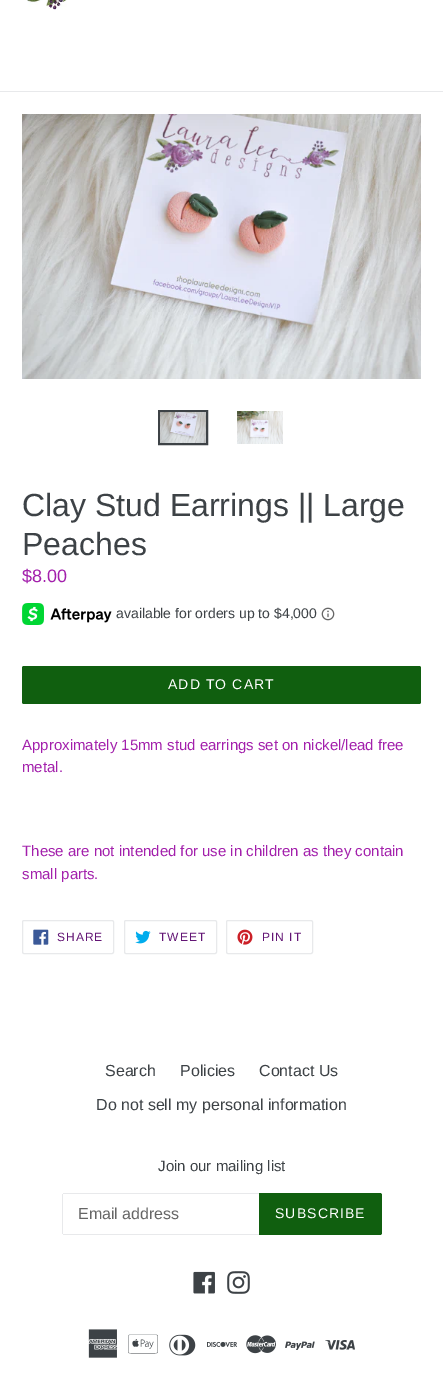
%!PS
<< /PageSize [443 1398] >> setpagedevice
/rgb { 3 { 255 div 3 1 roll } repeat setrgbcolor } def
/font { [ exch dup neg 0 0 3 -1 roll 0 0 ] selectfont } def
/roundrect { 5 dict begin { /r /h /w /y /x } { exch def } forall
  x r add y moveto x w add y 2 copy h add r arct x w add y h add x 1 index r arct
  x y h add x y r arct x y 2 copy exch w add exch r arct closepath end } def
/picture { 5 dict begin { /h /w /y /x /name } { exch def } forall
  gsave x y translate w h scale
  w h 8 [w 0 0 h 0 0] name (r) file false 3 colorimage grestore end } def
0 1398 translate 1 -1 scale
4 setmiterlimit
255 255 255 rgb
0 0 443 1398 rectfill
232 233 235 rgb
0 91 443 1 rectfill
(img/1.rgb) 27 0 40 10 picture
(img/2.rgb) 22 114 399 265 picture
61 66 70 rgb
2 setlinewidth
159 411 48 33 rectstroke
(img/3.rgb) 160 412 46 31 picture
(img/4.rgb) 237 411 46 33 picture
(img/5.rgb) 22 603 90 22 picture
(img/6.rgb) 321 607 14 14 picture
16 95 15 rgb
22 666 399 38 2 roundrect fill
232 233 235 rgb
1 setlinewidth
22.5 920.5 91 33 1.5 roundrect stroke
(img/7.rgb) 33 929 16 16 picture
124.5 920.5 92 33 1.5 roundrect stroke
(img/8.rgb) 135 930 16 14 picture
226.5 920.5 86 33 1.5 roundrect stroke
(img/9.rgb) 237 929 16 16 picture
[
  [63 1193 196 1 232 233 235]
  [63 1234 196 1 232 233 235]
  [62 1194 1 40 232 233 235]
] { aload pop rgb rectfill } forall
16 95 15 rgb
259 1193 moveto 380 1193 lineto 381 1193 382 1194 382 1195 curveto 382 1233 lineto 382 1234 381 1235 380 1235 curveto 259 1235 lineto closepath fill
(img/10.rgb) 193 1271 22 23 picture
(img/11.rgb) 227 1271 23 23 picture
(img/12.rgb) 88 1329 30 29 picture
(img/13.rgb) 128 1334 30 20 picture
(img/14.rgb) 169 1334 27 22 picture
(img/15.rgb) 207 1341 30 6 picture
(img/16.rgb) 246 1335 30 19 picture
(img/17.rgb) 285 1341 30 9 picture
(img/18.rgb) 325 1340 30 10 picture
/LiberationSans-Regular 32 font
61 66 70 rgb
22 516 moveto (Clay Stud Earrings || Large) show
22 555 moveto (Peaches) show
/LiberationSans-Regular 18 font
163 32 172 rgb
22 582 moveto ($8.00) show
/LiberationSans-Regular 14 font
61 66 70 rgb
116 618 moveto (available for orders up to $4,000) show
255 255 255 rgb
168 689 moveto 1.1 0 (ADD TO CART) ashow
/LiberationSans-Regular 15 font
163 32 172 rgb
[
  [(Approximately 15mm stud earrings set on nickel/lead free) 22 750]
  [(metal.) 22 772]
  [(These are not intended for use in children as they contain) 22 856]
  [(small parts.) 22 879]
] { aload pop moveto show } forall
/LiberationSans-Regular 12 font
99 21 117 rgb
57 941 moveto 1 0 (SHARE) ashow
159 941 moveto 1 0 (TWEET) ashow
262 941 moveto 1 0 (PIN IT) ashow
/LiberationSans-Regular 16 font
61 66 70 rgb
[
  [(Search) 105 1076]
  [(Policies) 180 1076]
  [(Contact Us) 259 1076]
  [(Do not sell my personal information) 96 1110]
] { aload pop moveto show } forall
/LiberationSans-Regular 15 font
158 1171 moveto (Join our mailing list) show
/LiberationSans-Regular 16 font
102 102 102 rgb
78 1219 moveto (Email address) show
/LiberationSans-Regular 14 font
255 255 255 rgb
275 1218 moveto 1.1 0 (SUBSCRIBE) ashow
showpage
